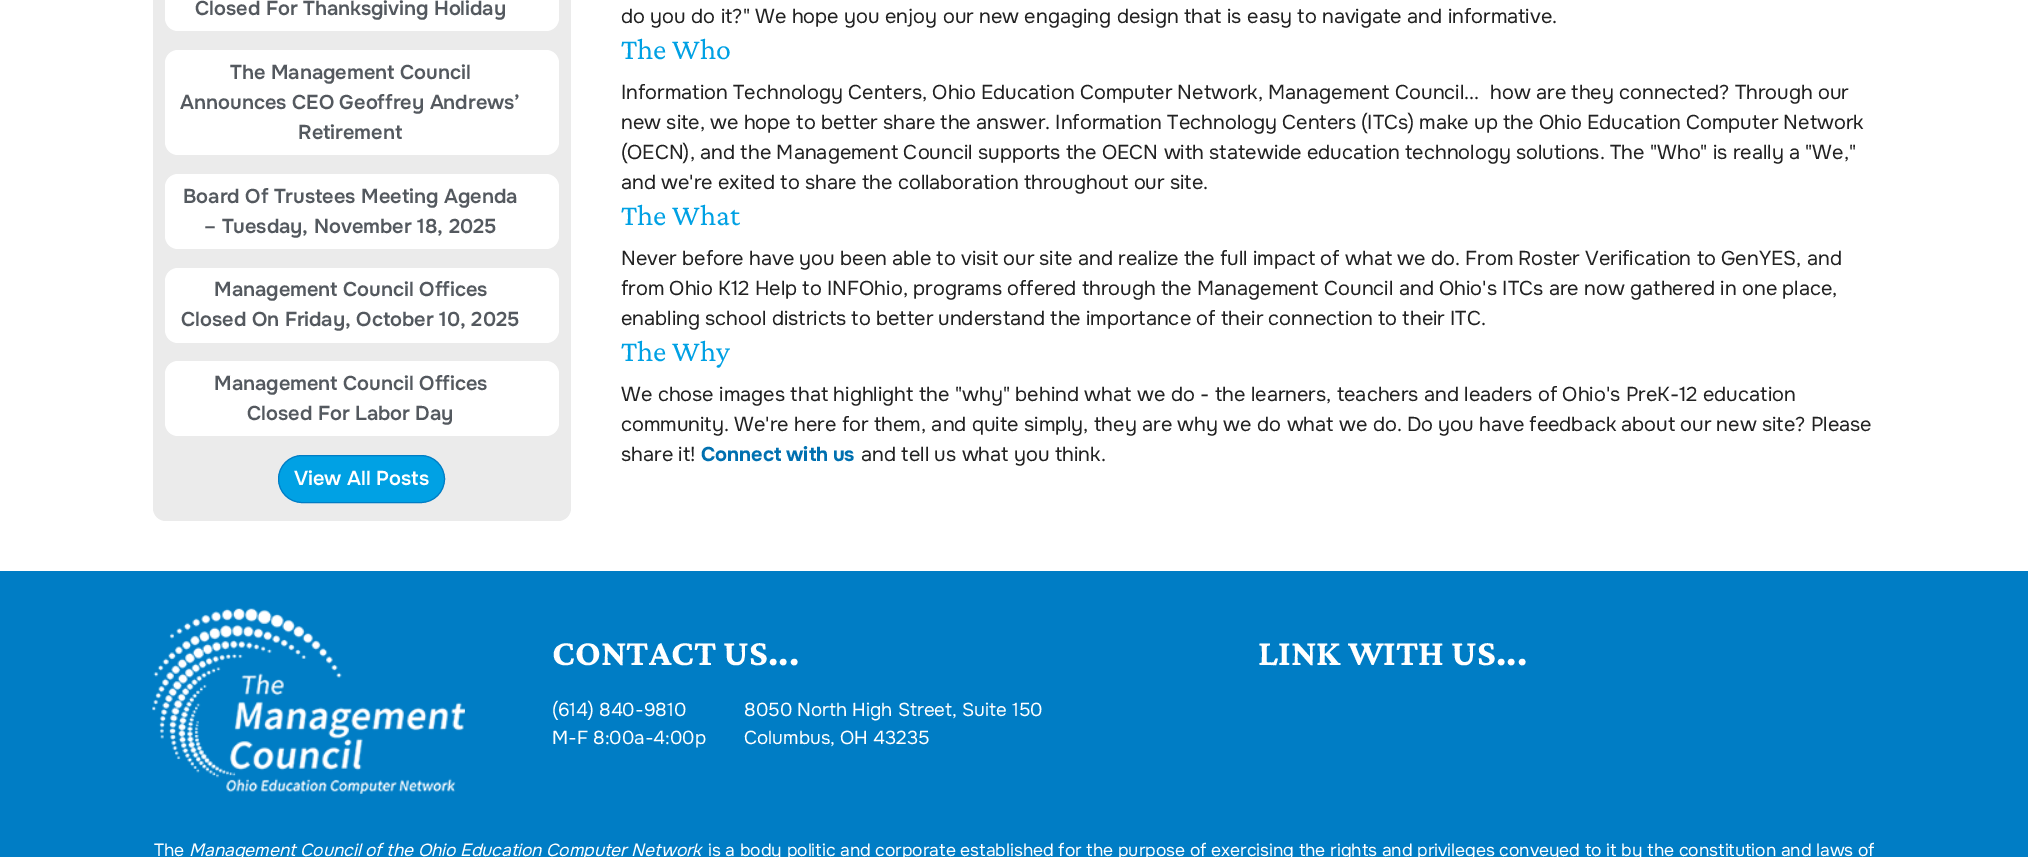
%!PS
<< /PageSize [2028 857] >> setpagedevice
/rgb { 3 { 255 div 3 1 roll } repeat setrgbcolor } def
/font { [ exch dup neg 0 0 3 -1 roll 0 0 ] selectfont } def
/roundrect { 5 dict begin { /r /h /w /y /x } { exch def } forall
  x r add y moveto x w add y 2 copy h add r arct x w add y h add x 1 index r arct
  x y h add x y r arct x y 2 copy exch w add exch r arct closepath end } def
/picture { 5 dict begin { /h /w /y /x /name } { exch def } forall
  gsave x y translate w h scale
  w h 8 [w 0 0 h 0 0] name (r) file false 3 colorimage grestore end } def
0 857 translate 1 -1 scale
4 setmiterlimit
255 255 255 rgb
0 0 2028 857 rectfill
235 235 235 rgb
153 -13 418 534 13 roundrect fill
255 255 255 rgb
165 -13 394 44 13 roundrect fill
165 50 394 105 13 roundrect fill
165 174 394 75 13 roundrect fill
165 268 394 75 13 roundrect fill
165 361 394 75 13 roundrect fill
0 161 228 rgb
278.5 455.5 166 47 23.5 roundrect gsave fill grestore
0 125 197 rgb
stroke
0 571 2028 286 rectfill
(img/1.rgb) 152 608 313 186 picture
/Onest-SemiBold 20 font
84 89 95 rgb
[
  [(Closed For Thanksgiving Holiday) 195 15]
  [(The Management Council) 230 79]
  [(Announces CEO Geoffrey Andrews’) 180 109]
  [(Retirement) 298 139]
  [(Board Of Trustees Meeting Agenda) 183 203]
  [(– Tuesday, November 18, 2025) 204 233]
  [(Management Council Offices) 214 296]
  [(Closed On Friday, October 10, 2025) 181 326]
  [(Management Council Offices) 214 390]
  [(Closed For Labor Day) 247 420]
] { aload pop moveto show } forall
255 255 255 rgb
294 485 moveto (View All Posts) show
/Onest-Regular 20 font
34 34 34 rgb
621 23 moveto (do you do it?" We hope you enjoy our new engaging design that is easy to navigate and informative.) show
/CrimsonPro-Regular 30 font
0 161 228 rgb
621 59 moveto (The Who) show
/Onest-Regular 20 font
34 34 34 rgb
621 99 moveto -0.1 0 32 (Information Technology Centers, Ohio Education Computer Network, Management Council...  how are they connected? Through our) widthshow
621 129 moveto -0.2 0 32 (new site, we hope to better share the answer. Information Technology Centers \(ITCs\) make up the Ohio Education Computer Network) widthshow
621 159 moveto -0.1 0 32 (\(OECN\), and the Management Council supports the OECN with statewide education technology solutions. The "Who" is really a "We,") widthshow
621 189 moveto -0.25 0 32 (and we're exited to share the collaboration throughout our site.) widthshow
/CrimsonPro-Regular 30 font
0 161 228 rgb
621 225 moveto (The What) show
/Onest-Regular 20 font
34 34 34 rgb
621 265 moveto -0.15 0 32 (Never before have you been able to visit our site and realize the full impact of what we do. From Roster Verification to GenYES, and) widthshow
621 295 moveto (from Ohio K12 Help to INFOhio, programs offered through the Management Council and Ohio's ITCs are now gathered in one place,) show
621 325 moveto -0.25 0 32 (enabling school districts to better understand the importance of their connection to their ITC.) widthshow
/CrimsonPro-Regular 30 font
0 161 228 rgb
621 361 moveto (The Why) show
/Onest-Regular 20 font
34 34 34 rgb
621 401 moveto (We chose images that highlight the "why" behind what we do - the learners, teachers and leaders of Ohio's PreK-12 education) show
621 431 moveto (community. We're here for them, and quite simply, they are why we do what we do.) show
1407 431 moveto -0.25 0 32 (Do you have feedback about our new site? Please) widthshow
621 461 moveto (share it!) show
/Onest-Bold 20 font
0 112 176 rgb
701 461 moveto -1 0 32 (Connect with us) widthshow
/Onest-Regular 20 font
34 34 34 rgb
861 461 moveto (and tell us what you think.) show
/CrimsonPro-Bold 37.5 font
255 255 255 rgb
552 665 moveto (CONTACT US...) show
/Onest-Regular 18.75 font
[
  [(\(614\) 840-9810) 552 716]
  [(M-F 8:00a-4:00p) 552 744]
  [(8050 North High Street, Suite 150) 744 716]
  [(Columbus, OH 43235) 744 744]
] { aload pop moveto show } forall
/CrimsonPro-Bold 37.5 font
1258 665 moveto (LINK WITH US...) show
/Onest-Regular 17.5 font
154 856 moveto (The) show
/Onest-Italic 17.5 font
189 856 moveto -0.25 0 32 (Management Council of the Ohio Education Computer Network) widthshow
/Onest-Regular 17.5 font
708 856 moveto (is a body politic and corporate established for the purpose of exercising the rights and privileges conveyed to it by the constitution and laws of) show
showpage
